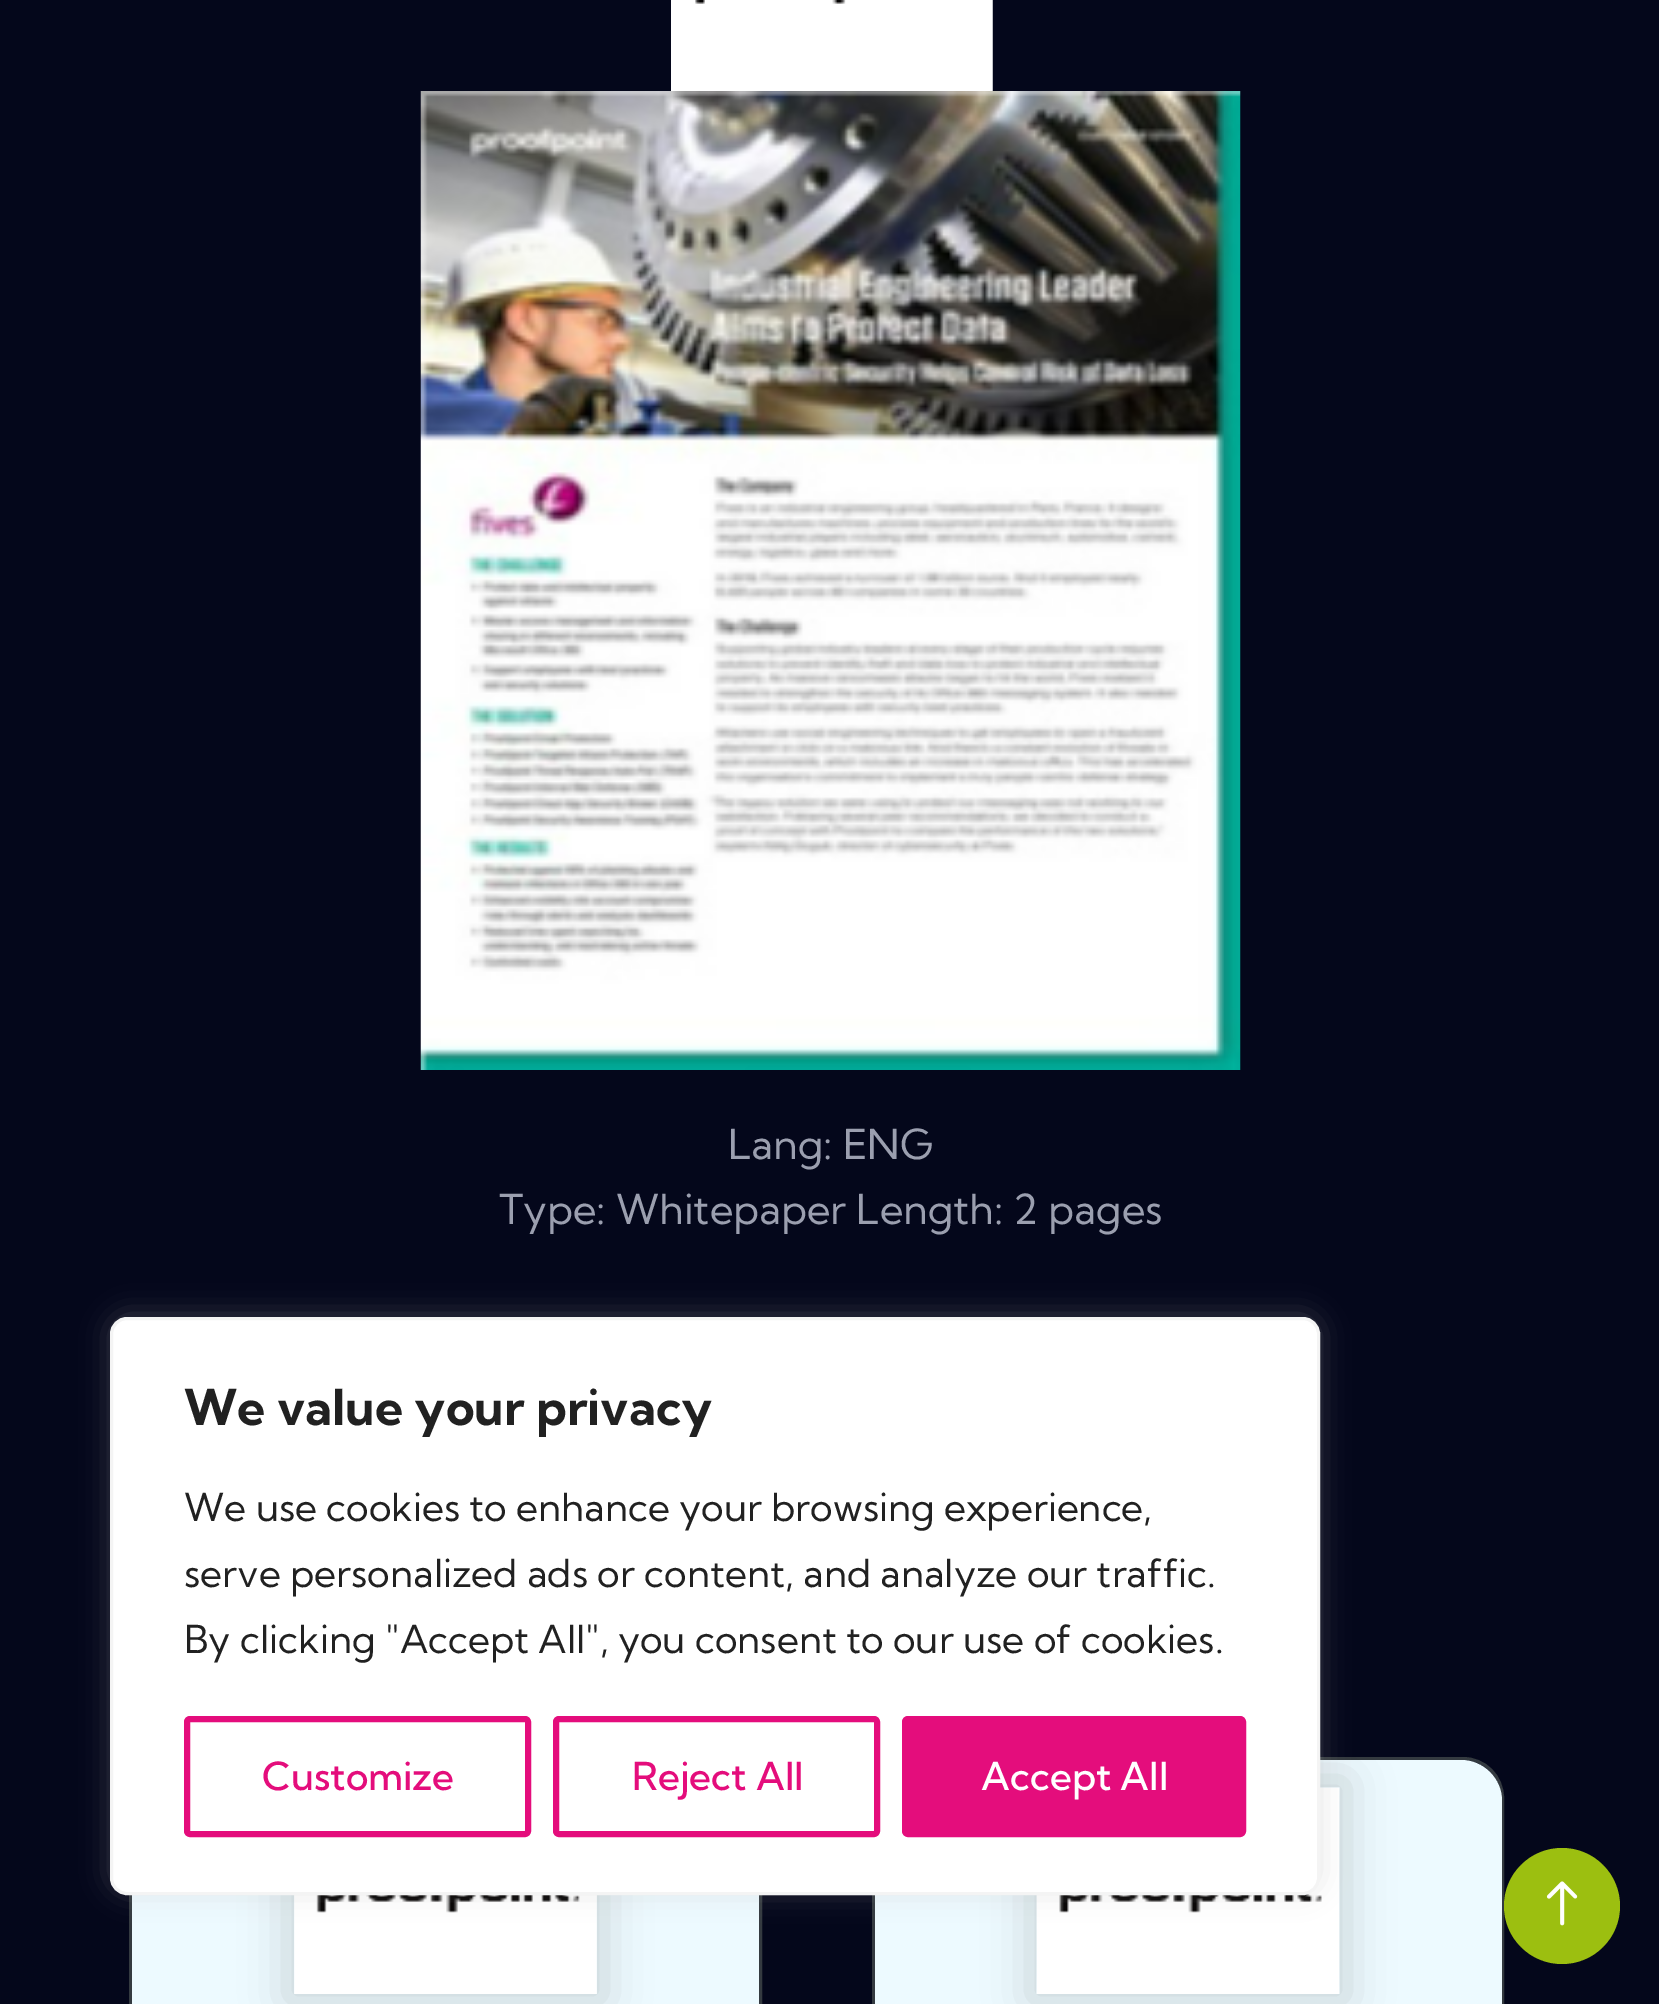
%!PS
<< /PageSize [1659 2004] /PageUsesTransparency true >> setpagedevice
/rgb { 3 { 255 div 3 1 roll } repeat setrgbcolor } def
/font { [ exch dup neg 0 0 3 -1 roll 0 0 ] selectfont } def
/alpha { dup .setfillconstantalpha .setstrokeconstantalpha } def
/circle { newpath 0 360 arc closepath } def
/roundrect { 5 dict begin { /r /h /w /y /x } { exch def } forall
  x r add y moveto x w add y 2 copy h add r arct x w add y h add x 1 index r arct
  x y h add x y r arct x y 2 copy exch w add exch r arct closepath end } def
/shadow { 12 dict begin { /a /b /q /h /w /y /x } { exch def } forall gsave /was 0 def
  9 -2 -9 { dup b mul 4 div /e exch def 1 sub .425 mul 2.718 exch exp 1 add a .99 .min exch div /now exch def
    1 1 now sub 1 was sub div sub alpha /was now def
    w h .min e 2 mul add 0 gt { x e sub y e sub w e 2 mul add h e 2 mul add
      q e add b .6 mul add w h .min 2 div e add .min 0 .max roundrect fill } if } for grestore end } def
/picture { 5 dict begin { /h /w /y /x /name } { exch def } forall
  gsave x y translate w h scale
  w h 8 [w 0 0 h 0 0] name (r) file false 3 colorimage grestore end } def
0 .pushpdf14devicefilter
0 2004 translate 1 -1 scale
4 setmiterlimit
4 7 27 rgb
0 0 1659 2004 rectfill
(img/1.rgb) 671 0 322 91 picture
(img/2.rgb) 420 91 821 979 picture
52 58 64 rgb
3 setlinewidth
130.5 1758.5 630 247 rectstroke
237 250 255 rgb
132 1895 627 109 rectfill
0 0 0 rgb
286 1779 319 223 0 22 0.15 shadow
(img/3.rgb) 294 1895 303 99 picture
52 58 64 rgb
873.5 1758.5 629 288 39.5 roundrect stroke
237 250 255 rgb
916 1760 moveto 1461 1760 lineto 1483.5 1760 1502 1778.5 1502 1801 curveto 1502 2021 lineto 875 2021 lineto 875 1801 lineto 875 1778.5 893.5 1760 916 1760 curveto closepath fill
0 0 0 rgb
1029 1779 319 223 0 22 0.15 shadow
(img/4.rgb) 1036 1787 304 207 picture
172 171 171 rgb
110 1315 1210 577 17 14 0.3 shadow
255 255 255 rgb
111.5 1318.5 1207 575 15.5 roundrect gsave fill grestore
244 244 244 rgb
stroke
228 13 124 rgb
6 setlinewidth
187 1719 341 115 3 roundrect stroke
556 1719 321 115 3 roundrect stroke
905 1719 338 115 3 roundrect gsave fill grestore
stroke
156 191 16 rgb
1562 1906 58 circle fill
(img/5.rgb) 1546 1881 32 45 picture
/KumbhSans-Regular 41.25 font
155 159 175 rgb
728 1159 moveto (Lang: ENG) show
499 1224 moveto (Type: Whitepaper Length: 2 pages) show
/KumbhSans-Bold 49.5 font
33 33 33 rgb
184 1425 moveto (We value your privacy) show
/KumbhSans-Regular 38.5 font
[
  [(We use cookies to enhance your browsing experience,) 184 1521]
  [(serve personalized ads or content, and analyze our traffic.) 184 1587]
  [(By clicking "Accept All", you consent to our use of cookies.) 184 1653]
] { aload pop moveto show } forall
/KumbhSans-Medium 38.5 font
228 13 124 rgb
262 1790 moveto (Customize) show
632 1790 moveto (Reject All) show
255 255 255 rgb
981 1790 moveto (Accept All) show
.poppdf14devicefilter showpage
